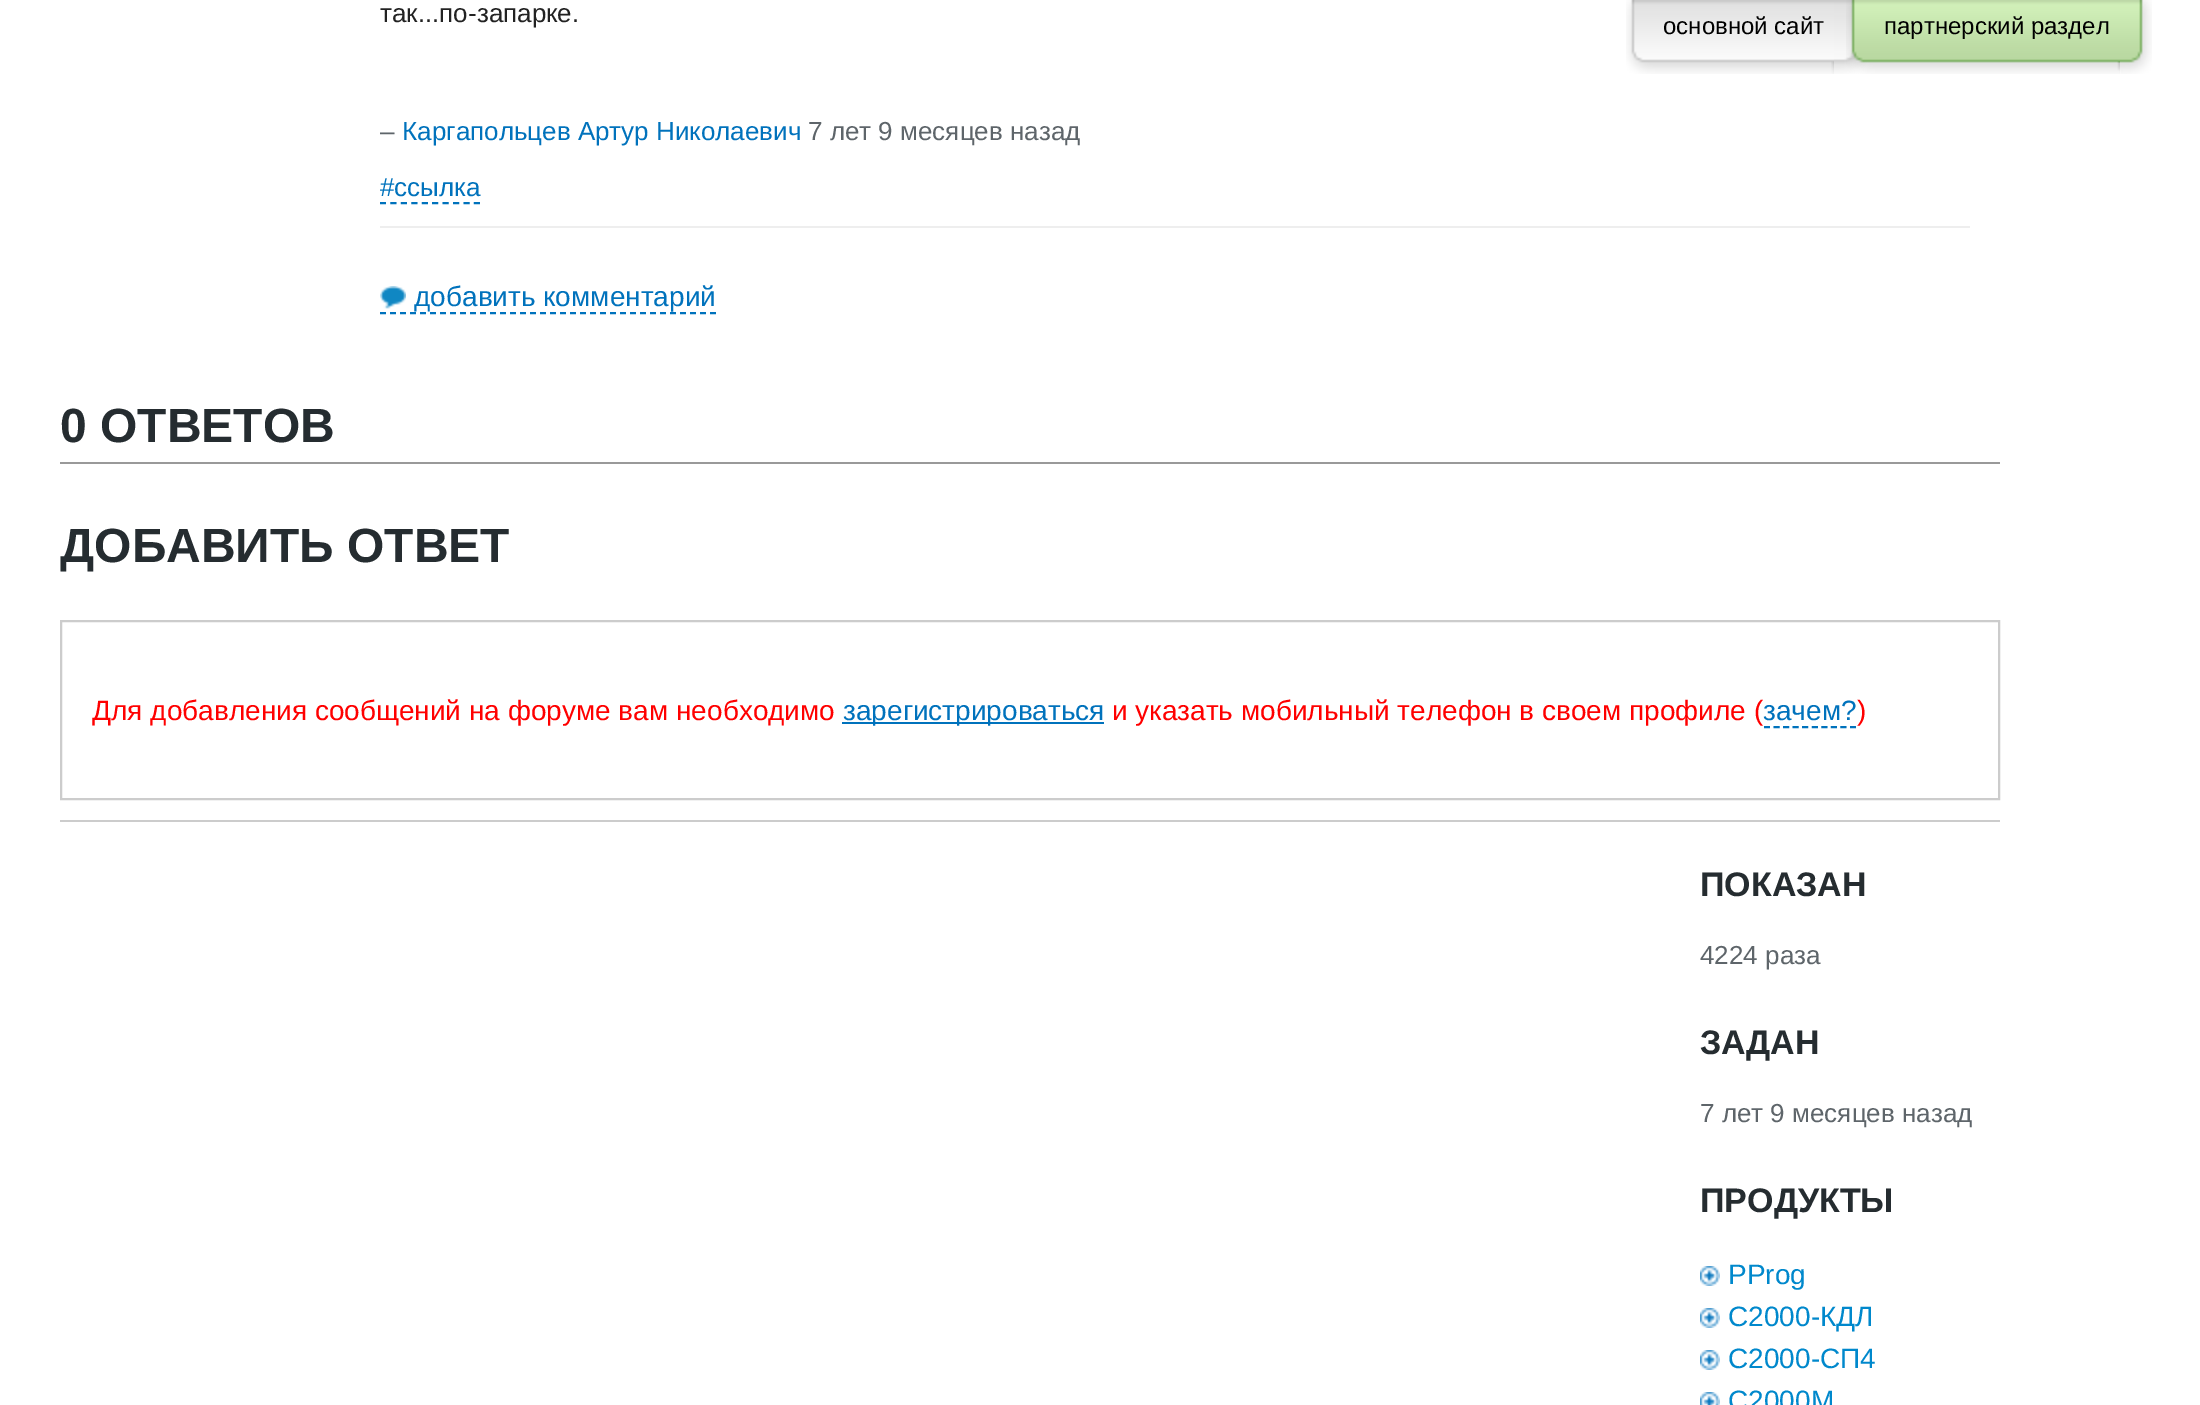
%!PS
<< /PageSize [2200 1405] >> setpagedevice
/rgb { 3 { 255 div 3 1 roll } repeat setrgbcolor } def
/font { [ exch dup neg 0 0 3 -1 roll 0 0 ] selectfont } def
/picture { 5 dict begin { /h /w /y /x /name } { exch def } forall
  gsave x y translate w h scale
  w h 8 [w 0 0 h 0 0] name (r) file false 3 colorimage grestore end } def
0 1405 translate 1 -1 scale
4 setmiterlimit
255 255 255 rgb
0 0 2200 1405 rectfill
238 238 238 rgb
380 226 1590 2 rectfill
0 114 188 rgb
2 setlinewidth
[6 4.44] 0 setdash
380 203 moveto 480 203 lineto stroke
(img/1.rgb) 380 286 26 23 picture
[6 4] 0 setdash
380 313 moveto 716 313 lineto stroke
153 153 153 rgb
60 462 1940 2 rectfill
204 204 204 rgb
60 820 1940 2 rectfill
[] 0 setdash
61 621 1938 178 rectstroke
0 114 188 rgb
842 722 262 2 rectfill
[6 3.56] 0 setdash
1764 727 moveto 1856 727 lineto stroke
(img/2.rgb) 1700 1266 20 20 picture
(img/2.rgb) 1700 1308 20 20 picture
(img/2.rgb) 1700 1350 20 20 picture
(img/3.rgb) 1700 1392 20 13 picture
(img/4.rgb) 1831 0 33 74 picture
(img/5.rgb) 1626 0 208 74 picture
(img/6.rgb) 2117 0 35 74 picture
(img/7.rgb) 1846 0 274 74 picture
/LiberationSans-Regular 26 font
34 34 34 rgb
380 22 moveto (так...по-запарке.) show
94 101 106 rgb
380 140 moveto (–) show
0 114 188 rgb
402 140 moveto (Каргапольцев Артур Николаевич) show
94 101 106 rgb
808 140 moveto (7 лет 9 месяцев назад) show
0 114 188 rgb
380 196 moveto (#ссылка) show
/LiberationSans-Regular 28 font
414 306 moveto (добавить комментарий) show
/LiberationSans-Bold 48 font
37 44 48 rgb
60 442 moveto (0 ОТВЕТОВ) show
60 562 moveto (ДОБАВИТЬ ОТВЕТ) show
/LiberationSans-Regular 28 font
255 0 0 rgb
92 720 moveto (Для добавления сообщений на форуме вам необходимо) show
0 114 188 rgb
843 720 moveto (зарегистрироваться) show
255 0 0 rgb
1112 720 moveto (и указать мобильный телефон в своем профиле \() show
0 114 188 rgb
1763 720 moveto (зачем?) show
255 0 0 rgb
1857 720 moveto (\)) show
/LiberationSans-Bold 34 font
37 44 48 rgb
1700 896 moveto (ПОКАЗАН) show
/LiberationSans-Regular 26 font
94 101 106 rgb
1700 964 moveto (4224 раза) show
/LiberationSans-Bold 34 font
37 44 48 rgb
1700 1054 moveto (ЗАДАН) show
/LiberationSans-Regular 26 font
94 101 106 rgb
1700 1122 moveto (7 лет 9 месяцев назад) show
/LiberationSans-Bold 34 font
37 44 48 rgb
1700 1212 moveto (ПРОДУКТЫ) show
/LiberationSans-Regular 28 font
0 136 204 rgb
[
  [(PProg) 1728 1284]
  [(С2000-КДЛ) 1728 1326]
  [(С2000-СП4) 1728 1368]
  [(С2000М) 1728 1410]
] { aload pop moveto show } forall
/LiberationSans-Regular 24 font
0 0 0 rgb
1663 34 moveto (основной сайт) show
1884 34 moveto (партнерский раздел) show
showpage
